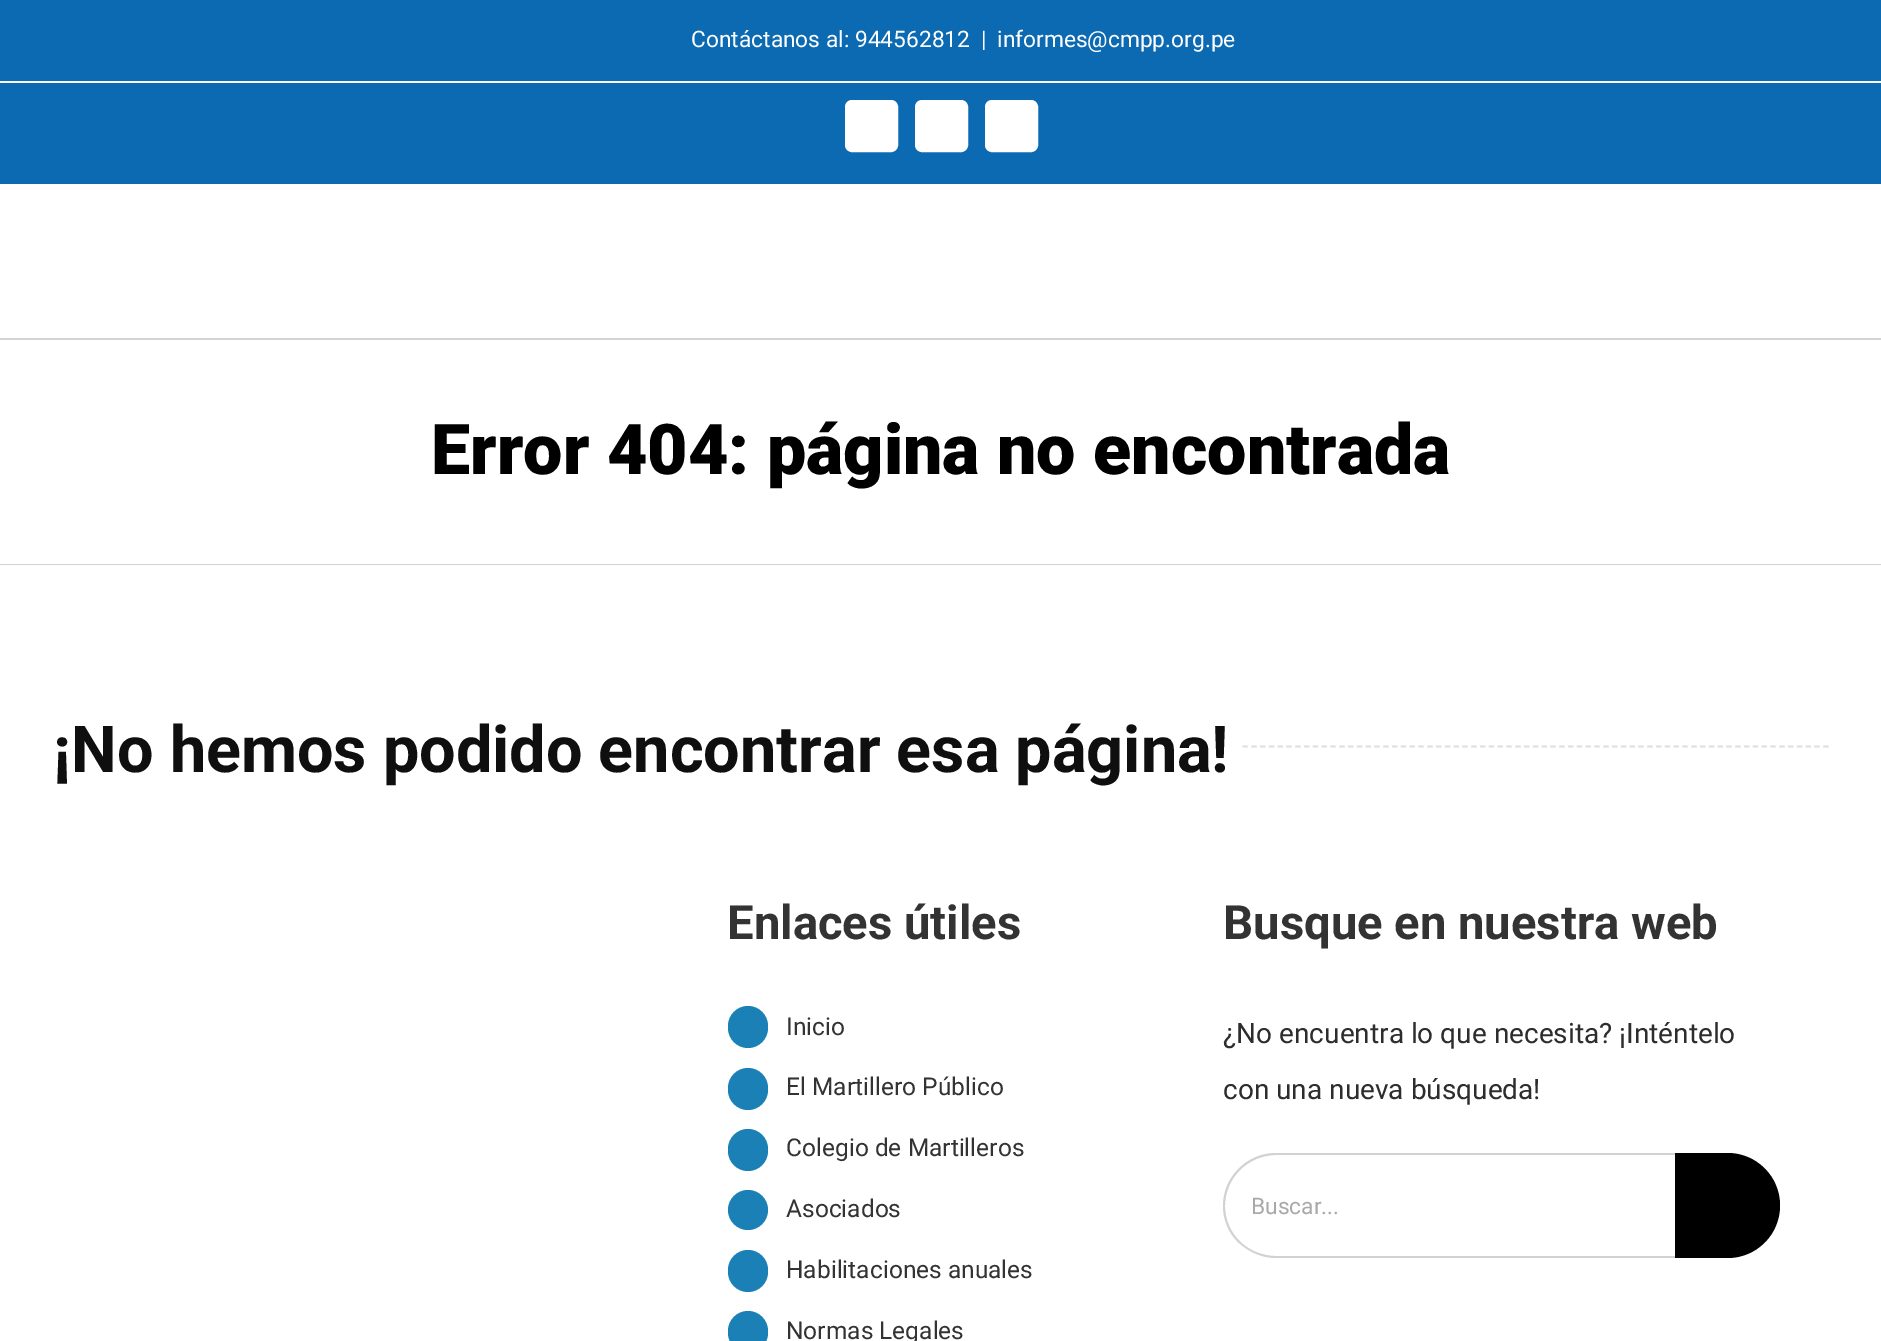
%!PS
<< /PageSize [1881 1341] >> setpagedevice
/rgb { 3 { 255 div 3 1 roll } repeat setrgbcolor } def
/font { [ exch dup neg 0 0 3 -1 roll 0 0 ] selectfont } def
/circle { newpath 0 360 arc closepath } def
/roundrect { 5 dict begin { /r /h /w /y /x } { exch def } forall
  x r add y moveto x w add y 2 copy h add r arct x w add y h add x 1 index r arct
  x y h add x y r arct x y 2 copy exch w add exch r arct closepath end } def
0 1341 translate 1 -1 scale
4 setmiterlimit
255 255 255 rgb
0 0 1881 1341 rectfill
12 106 178 rgb
0 0 1881 184 rectfill
255 255 255 rgb
0 81 1881 2 rectfill
846 101 51 50 6 roundrect gsave fill grestore
2 setlinewidth
stroke
916 101 51 50 6 roundrect gsave fill grestore
stroke
986 101 51 50 6 roundrect gsave fill grestore
stroke
210 211 212 rgb
0 338 1881 2 rectfill
0 564 1881 1 rectfill
224 222 222 rgb
1.8 setlinewidth
[5.25 3.55] 0 setdash
1242.5 746.5 moveto 1829 746.5 lineto stroke
26 128 182 rgb
728 1006 40 42 20 roundrect fill
728 1068 40 42 20 roundrect fill
728 1129 40 42 20 roundrect fill
748 1210 20 circle fill
728 1250 40 42 20 roundrect fill
728 1311 40 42 20 roundrect fill
210 210 210 rgb
1276 1153 moveto 1247 1153 1223 1177 1223 1206 curveto 1223 1220 1229 1234 1239 1243 curveto 1249 1252 1262 1258 1276 1258 curveto 1675 1258 lineto 1675 1256 lineto 1276 1256 lineto 1248 1256 1225 1234 1225 1206 curveto 1225 1178 1248 1155 1276 1155 curveto 1675 1155 lineto 1675 1153 lineto closepath fill
0 0 0 rgb
1675 1153 moveto 1727.5 1153 lineto 1756.5 1153 1780 1176.5 1780 1205.5 curveto 1780 1234.5 1756.5 1258 1727.5 1258 curveto 1675 1258 lineto closepath fill
/Roboto-Regular 22.75 font
255 255 255 rgb
[
  [(Contáctanos al: 944562812) 691 47]
  [(|) 981 47]
  [(informes@cmpp.org.pe) 997 47]
] { aload pop moveto show } forall
/Roboto-Black 70 font
0 0 0 rgb
431 474 moveto (Error 404: página no encontrada) show
/Roboto-Bold 64.75 font
15 15 15 rgb
53 772 moveto (¡No hemos podido encontrar esa página!) show
/Roboto-Bold 47.25 font
51 51 51 rgb
727 939 moveto (Enlaces útiles) show
/Roboto-Regular 24.5 font
[
  [(Inicio) 786 1035]
  [(El Martillero Público) 786 1095]
  [(Colegio de Martilleros) 786 1156]
  [(Asociados) 786 1217]
  [(Habilitaciones anuales) 786 1278]
  [(Normas Legales) 786 1339]
] { aload pop moveto show } forall
/Roboto-Bold 47.25 font
1223 939 moveto (Busque en nuestra web) show
/Roboto-Regular 28 font
45 45 45 rgb
1223 1043 moveto (¿No encuentra lo que necesita? ¡Inténtelo) show
1223 1099 moveto (con una nueva búsqueda!) show
/Roboto-Regular 22.75 font
170 169 169 rgb
1251 1214 moveto (Buscar...) show
showpage
